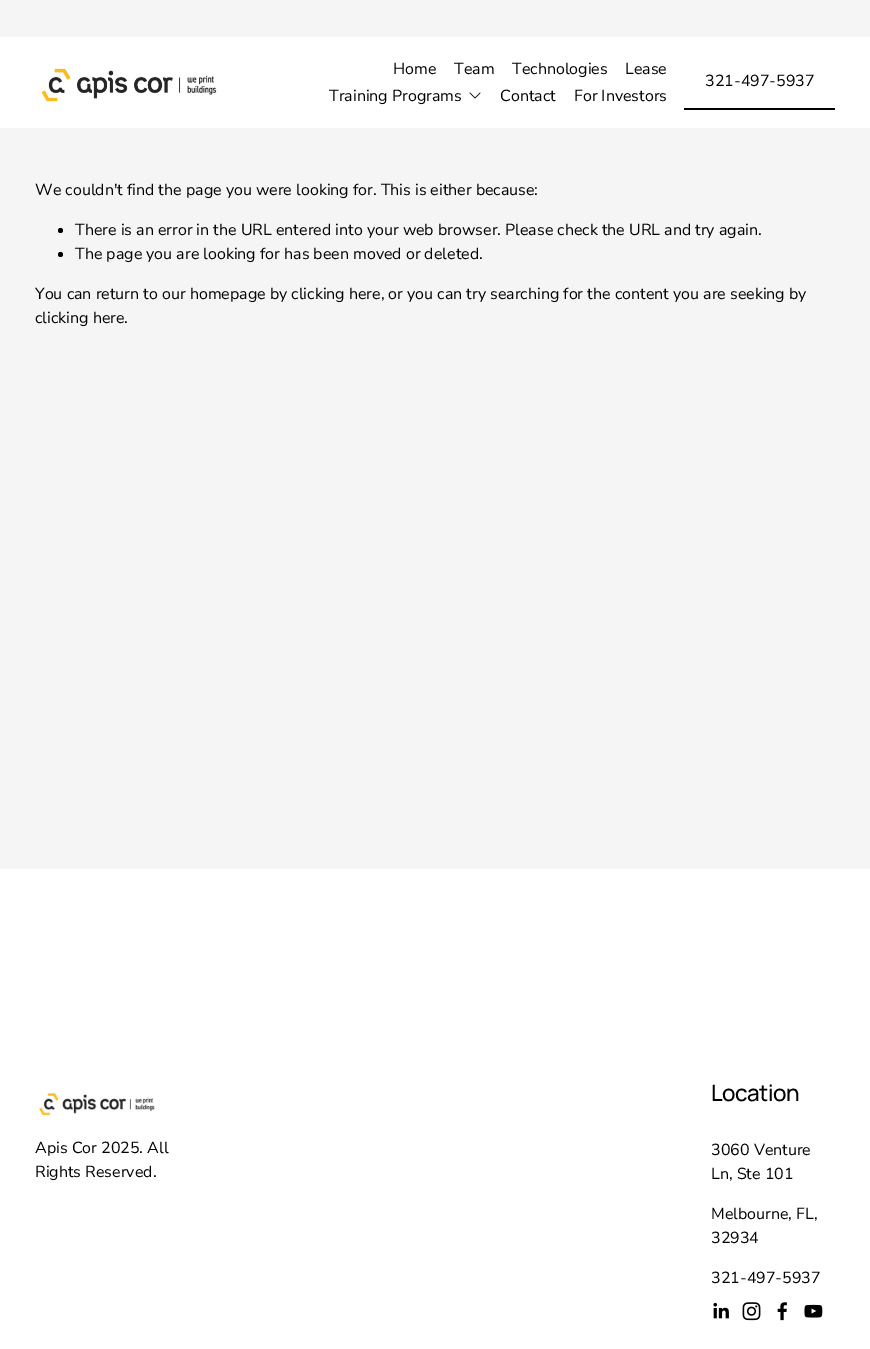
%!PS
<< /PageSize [870 1349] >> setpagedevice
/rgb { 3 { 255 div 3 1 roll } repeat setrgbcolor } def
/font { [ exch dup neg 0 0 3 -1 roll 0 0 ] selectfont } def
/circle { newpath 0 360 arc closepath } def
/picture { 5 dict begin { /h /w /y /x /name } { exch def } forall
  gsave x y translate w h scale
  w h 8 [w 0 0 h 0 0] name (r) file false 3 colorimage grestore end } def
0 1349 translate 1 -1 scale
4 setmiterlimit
245 245 245 rgb
0 0 870 1349 rectfill
255 255 255 rgb
0 37 870 91 rectfill
(img/1.rgb) 41 68 176 34 picture
0 0 0 rgb
0.7 setlinewidth
2 setlinecap
480 93 moveto 475 98 lineto 470 93 lineto stroke
684 108 151 2 rectfill
60.5 230.5 2.5 circle fill
60.5 254.5 2.5 circle fill
255 255 255 rgb
0 869 870 480 rectfill
(img/2.rgb) 39 1093 116 23 picture
(img/3.rgb) 713 1302 16 17 picture
(img/4.rgb) 742 1302 19 19 picture
(img/5.rgb) 777 1302 10 19 picture
(img/6.rgb) 804 1304 19 14 picture
/NunitoSans-Regular 16 font
0 0 0 rgb
[
  [(Home) 393 74]
  [(Team) 454 74]
  [(Technologies) 512 74]
  [(Lease) 625 74]
  [(Training Programs) 329 101]
  [(Contact) 500 101]
  [(For Investors) 574 101]
  [(321-497-5937) 705 86]
  [(We couldn't find the page you were looking for. This is either because:) 35 195]
  [(There is an error in the URL entered into your web browser. Please check the URL and try again.) 75 235]
  [(The page you are looking for has been moved or deleted.) 75 259]
  [(You can return to our homepage by clicking here, or you can try searching for the content you are seeking by) 35 299]
  [(clicking here.) 35 323]
] { aload pop moveto show } forall
/Manrope-Medium 22.5 font
711 1101 moveto -0.5 0 (Location) ashow
/NunitoSans-Regular 16 font
[
  [(3060 Venture) 711 1155]
  [(Ln, Ste 101) 711 1179]
  [(Melbourne, FL,) 711 1219]
  [(32934) 711 1243]
  [(321-497-5937) 711 1283]
  [(Apis Cor 2025. All) 35 1153]
  [(Rights Reserved.) 35 1177]
] { aload pop moveto show } forall
showpage
